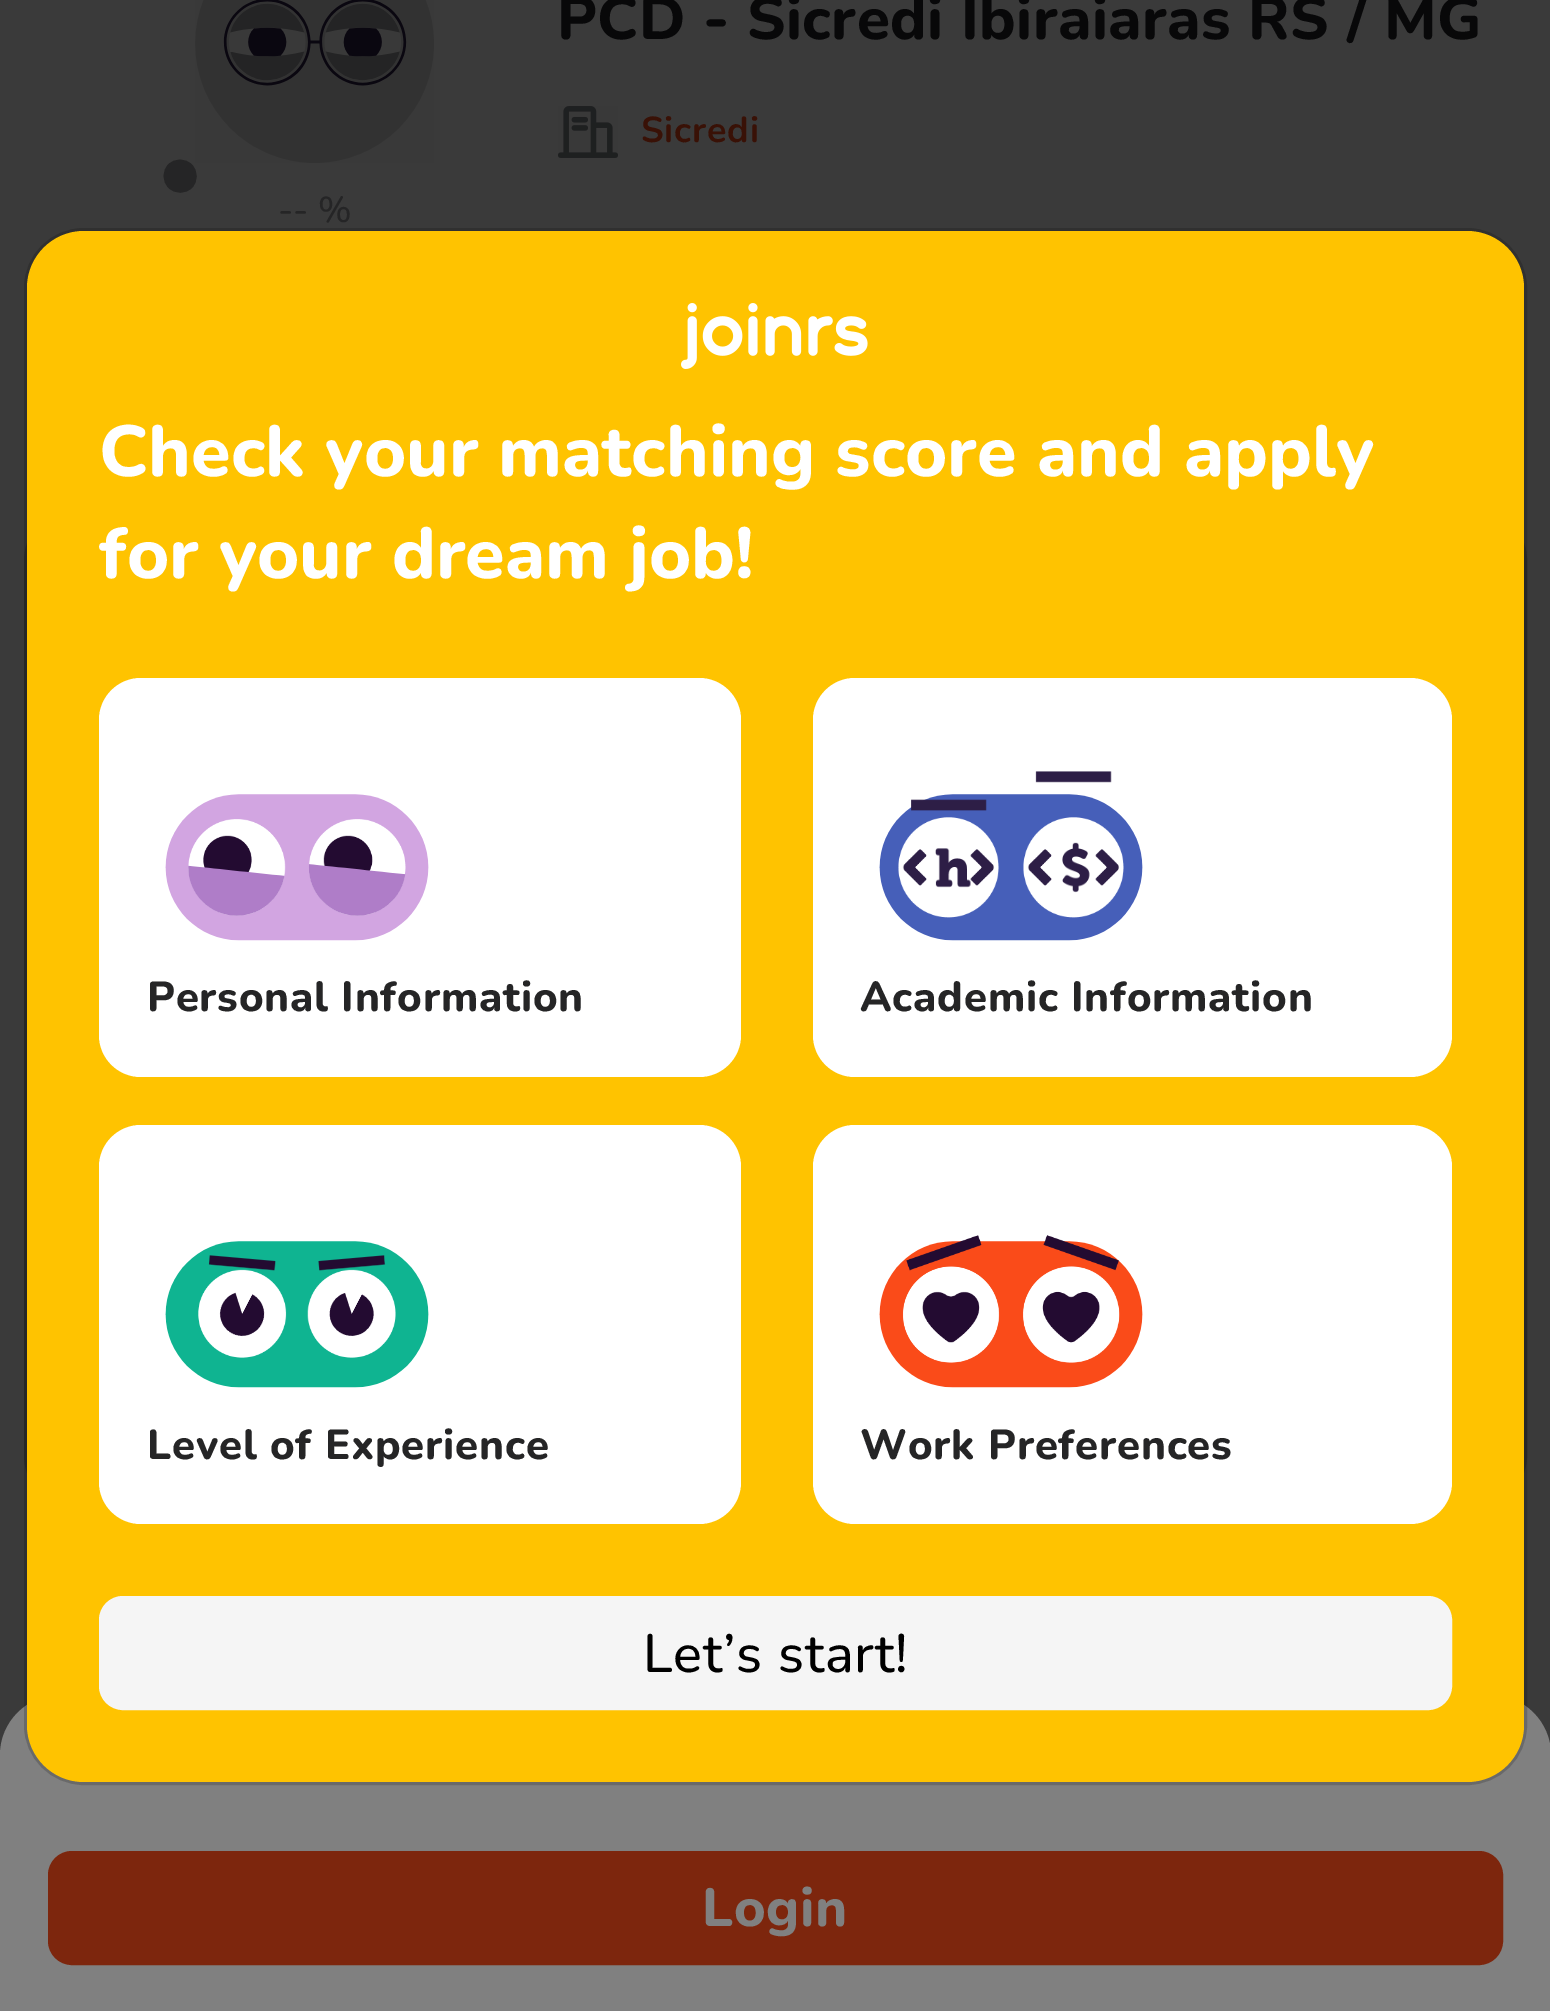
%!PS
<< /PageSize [1550 2011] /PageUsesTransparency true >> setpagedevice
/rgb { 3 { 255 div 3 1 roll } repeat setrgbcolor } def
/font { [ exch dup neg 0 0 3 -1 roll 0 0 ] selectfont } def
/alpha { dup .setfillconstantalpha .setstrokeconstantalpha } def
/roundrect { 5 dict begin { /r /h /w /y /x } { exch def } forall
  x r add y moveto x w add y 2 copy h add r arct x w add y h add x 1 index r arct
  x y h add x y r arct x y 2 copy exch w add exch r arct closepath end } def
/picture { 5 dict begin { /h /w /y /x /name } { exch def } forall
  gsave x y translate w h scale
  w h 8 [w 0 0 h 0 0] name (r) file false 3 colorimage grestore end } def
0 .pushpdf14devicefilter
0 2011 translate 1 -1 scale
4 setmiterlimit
58 58 58 rgb
0 0 1550 2011 rectfill
(img/1.rgb) 558 106 60 52 picture
37 37 38 rgb
33 setlinewidth
1 setlinecap
[1193.59 1193.59] 1193.6 setdash
180 176 moveto 106 101.5 106 -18.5 180 -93 curveto 254.5 -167 374.5 -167 449 -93 curveto 523 -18.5 523 101.5 449 176 curveto 374.5 250 254.5 250 180 176 curveto stroke
(img/2.rgb) 195 0 239 163 picture
128 128 128 rgb
60 1695 moveto 1491 1695 lineto 1524 1695 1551 1722 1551 1755 curveto 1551 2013 lineto 0 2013 lineto 0 1755 lineto 0 1722 27 1695 60 1695 curveto closepath fill
125 38 13 rgb
49.5 1852.5 1452 111 22.5 roundrect gsave fill grestore
3 setlinewidth
0 setlinecap
[] 0 setdash
stroke
0.18 alpha
0 0 0 rgb
25.5 502.5 1500 1011 58.5 roundrect stroke
25.5 229.5 1500 1554 58.5 roundrect stroke
1 alpha
255 195 0 rgb
27 231 1497 1551 57 roundrect fill
(img/3.rgb) 681 303 187 66 picture
255 255 255 rgb
99 678 642 399 42 roundrect fill
(img/4.rgb) 165 794 264 147 picture
813 678 639 399 42 roundrect fill
(img/5.rgb) 879 771 264 170 picture
99 1125 642 399 42 roundrect fill
(img/6.rgb) 165 1241 264 147 picture
813 1125 639 399 42 roundrect fill
(img/7.rgb) 879 1235 264 153 picture
245 245 245 rgb
100.5 1597.5 1350 111 22.5 roundrect gsave fill grestore
stroke
/Nunito-ExtraBold 60 font
8 8 9 rgb
557 39 moveto 0.45 0 (PCD - Sicredi Ibiraiaras RS / MG) ashow
/Nunito-Bold 36 font
57 17 6 rgb
641 142 moveto 0.75 0 (Sicredi) ashow
/Nunito-Medium 36 font
37 37 38 rgb
278 222 moveto (-- %) show
/Nunito-ExtraBold 54 font
128 128 128 rgb
702 1926 moveto 0.75 0 (Login) ashow
/Nunito-ExtraBold 72 font
255 255 255 rgb
99 476 moveto (Check your matching score and apply) show
99 578 moveto (for your dream job!) show
/Nunito-ExtraBold 42 font
37 37 38 rgb
147 1011 moveto 0.75 0 (Personal Information) ashow
860 1011 moveto 0.75 0 (Academic Information) ashow
147 1459 moveto 0.75 0 (Level of Experience) ashow
860 1459 moveto 0.75 0 (Work Preferences) ashow
/Nunito-Medium 54 font
0 0 0 rgb
643 1672 moveto 0.75 0 (Let’s start!) ashow
.poppdf14devicefilter showpage
